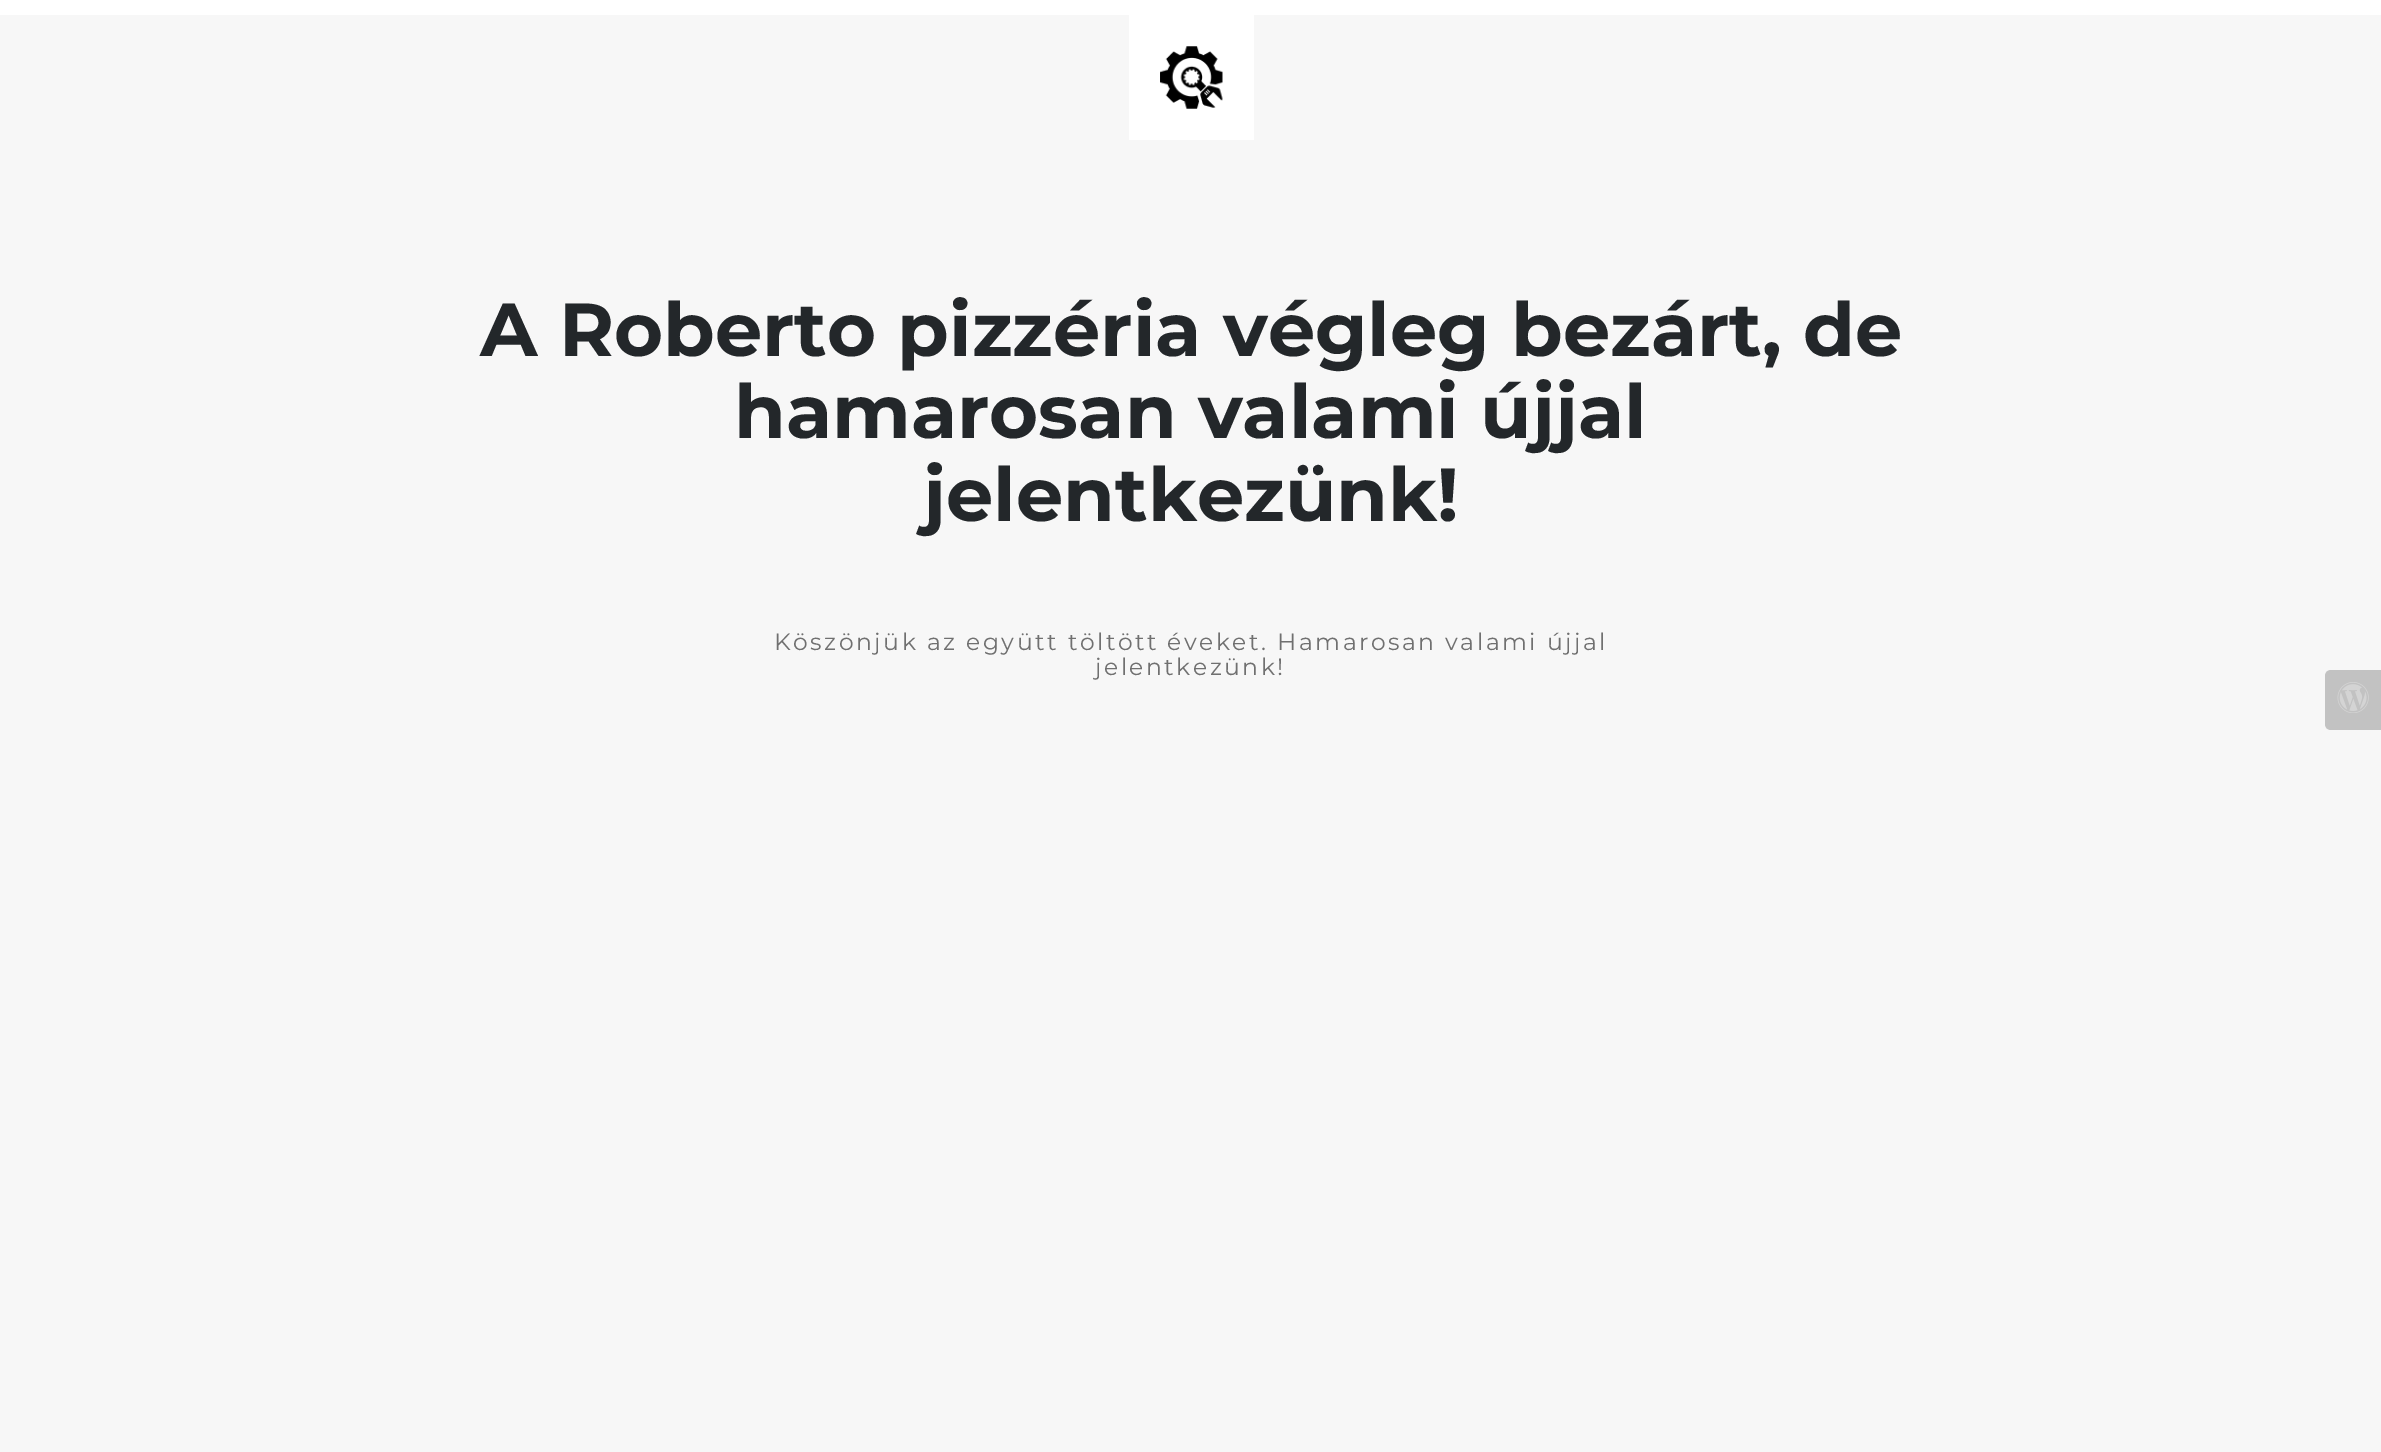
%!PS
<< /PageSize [2381 1452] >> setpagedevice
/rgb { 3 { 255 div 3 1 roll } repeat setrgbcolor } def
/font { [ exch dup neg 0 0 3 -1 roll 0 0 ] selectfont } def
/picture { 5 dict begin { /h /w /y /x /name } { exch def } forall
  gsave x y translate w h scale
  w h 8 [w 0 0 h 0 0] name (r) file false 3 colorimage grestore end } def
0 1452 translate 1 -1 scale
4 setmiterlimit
247 247 247 rgb
0 0 2381 1452 rectfill
255 255 255 rgb
0 0 2381 15 rectfill
1129 15 125 125 rectfill
(img/1.rgb) 1160 46 63 63 picture
194 194 194 rgb
2331 670 moveto 2381 670 lineto 2381 730 lineto 2331 730 lineto 2327.5 730 2325 727.5 2325 724 curveto 2325 676 lineto 2325 672.5 2327.5 670 2331 670 curveto closepath fill
(img/2.rgb) 2337 682 32 31 picture
/Montserrat-Thin 75 font
35 39 42 rgb
[
  [(A Roberto pizzéria végleg bezárt, de) 480 356]
  [(hamarosan valami újjal) 734 438]
  [(jelentkezünk!) 923 521]
] { aload pop moveto show } forall
/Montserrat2-Thin 23.45 font
112 112 112 rgb
774 650 moveto 2.5 0 (Köszönjük az együtt töltött éveket. Hamarosan valami újjal) ashow
1095 675 moveto 2.5 0 (jelentkezünk!) ashow
showpage
